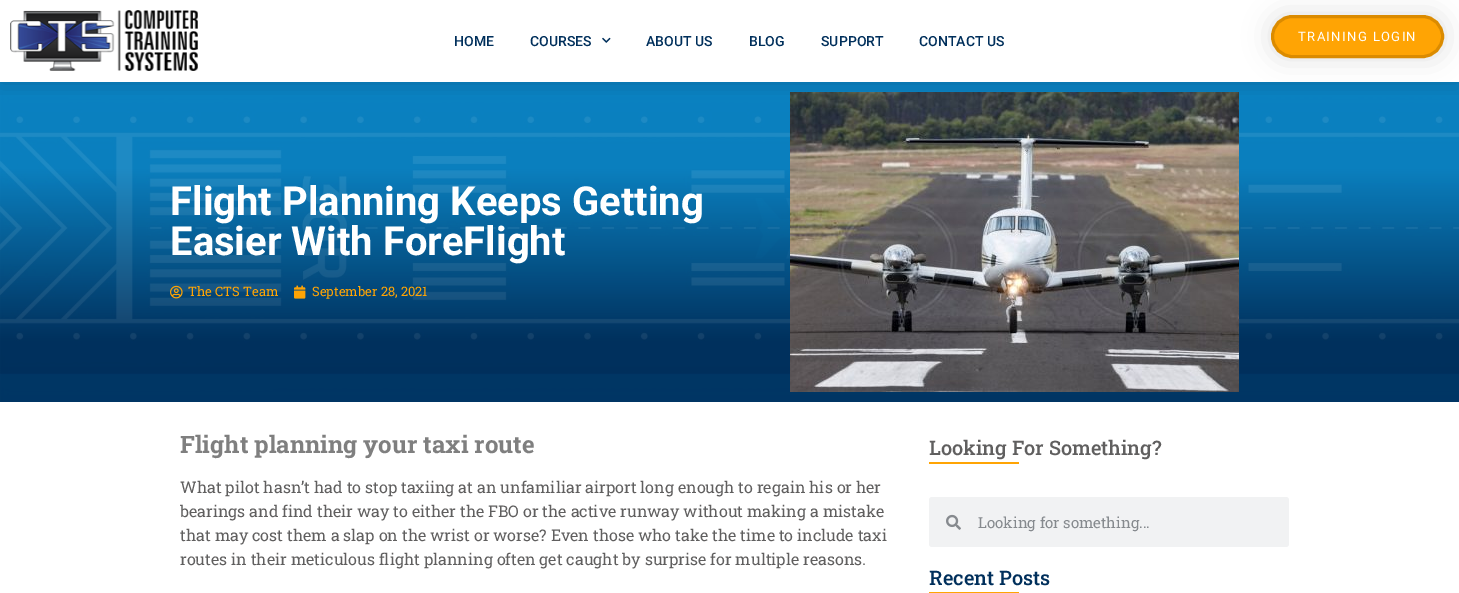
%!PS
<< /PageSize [1459 593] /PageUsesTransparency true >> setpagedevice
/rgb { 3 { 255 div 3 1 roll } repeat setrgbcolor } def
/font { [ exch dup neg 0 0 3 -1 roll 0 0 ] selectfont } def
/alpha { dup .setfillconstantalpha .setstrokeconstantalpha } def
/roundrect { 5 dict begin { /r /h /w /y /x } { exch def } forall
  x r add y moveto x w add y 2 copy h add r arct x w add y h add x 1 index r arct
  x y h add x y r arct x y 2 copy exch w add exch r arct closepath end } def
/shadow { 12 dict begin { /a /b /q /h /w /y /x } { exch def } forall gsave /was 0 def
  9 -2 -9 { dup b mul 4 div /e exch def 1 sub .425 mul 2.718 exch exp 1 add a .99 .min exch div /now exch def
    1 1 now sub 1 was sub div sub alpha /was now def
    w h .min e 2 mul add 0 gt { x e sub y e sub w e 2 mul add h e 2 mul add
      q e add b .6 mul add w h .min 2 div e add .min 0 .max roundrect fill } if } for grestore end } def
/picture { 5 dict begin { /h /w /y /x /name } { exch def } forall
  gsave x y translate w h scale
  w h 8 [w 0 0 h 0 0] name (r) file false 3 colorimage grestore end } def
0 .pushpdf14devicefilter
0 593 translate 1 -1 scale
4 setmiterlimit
255 255 255 rgb
0 0 1459 593 rectfill
(img/3.rgb) 0 82 1459 320 picture
(img/6.rgb) 790 92 449 300 picture
gsave
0 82 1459 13 rectclip
0 0 0 rgb
0 0 1459 82 0 12 0.15 shadow
grestore
(img/1.rgb) 10 10 188 61 picture
(img/2.rgb) 602 37 9 6 picture
0 0 0 rgb
1271 15 173 43 21.5 13.5 0.12 shadow
255 164 4 rgb
1272.5 16.5 170 40 20 roundrect gsave fill grestore
219 139 0 rgb
3 setlinewidth
stroke
(img/4.rgb) 170 285 13 14 picture
(img/5.rgb) 294 285 12 14 picture
255 164 4 rgb
929 462 90 2 rectfill
241 242 243 rgb
929 497 360 50 3 roundrect fill
(img/7.rgb) 946 514 15 16 picture
255 164 4 rgb
929 592 90 1 rectfill
/Roboto-Medium 14 font
0 47 91 rgb
[
  [(HOME) 454 46]
  [(COURSES) 530 46]
  [(ABOUT US) 646 46]
  [(BLOG) 749 46]
  [(SUPPORT) 821 46]
  [(CONTACT US) 919 46]
] { aload pop moveto show } forall
/Roboto-Regular 13 font
255 255 255 rgb
1298 41 moveto 1.4 0 (TRAINING LOGIN) ashow
/Roboto-Bold 40 font
170 215 moveto (Flight Planning Keeps Getting) show
170 255 moveto (Easier With ForeFlight) show
/RobotoSlab-Regular 13 font
255 164 4 rgb
188 296 moveto (The CTS Team) show
312 296 moveto (September 28, 2021) show
/RobotoSlab-Bold 24 font
127 127 127 rgb
180 453 moveto (Flight planning your taxi route) show
/RobotoSlab-Regular 16 font
96 95 95 rgb
[
  [(What pilot hasn’t had to stop taxiing at an unfamiliar airport long enough to regain his or her) 180 493]
  [(bearings and find their way to either the FBO or the active runway without making a mistake) 180 517]
  [(that may cost them a slap on the wrist or worse? Even those who take the time to include taxi) 180 541]
  [(routes in their meticulous flight planning often get caught by surprise for multiple reasons.) 180 565]
] { aload pop moveto show } forall
/RobotoSlab-Medium 20 font
929 455 moveto (Looking For Something?) show
/RobotoSlab-Regular 15 font
134 138 142 rgb
978 528 moveto (Looking for something...) show
/RobotoSlab-Medium 20 font
0 47 91 rgb
929 585 moveto (Recent Posts) show
.poppdf14devicefilter showpage
